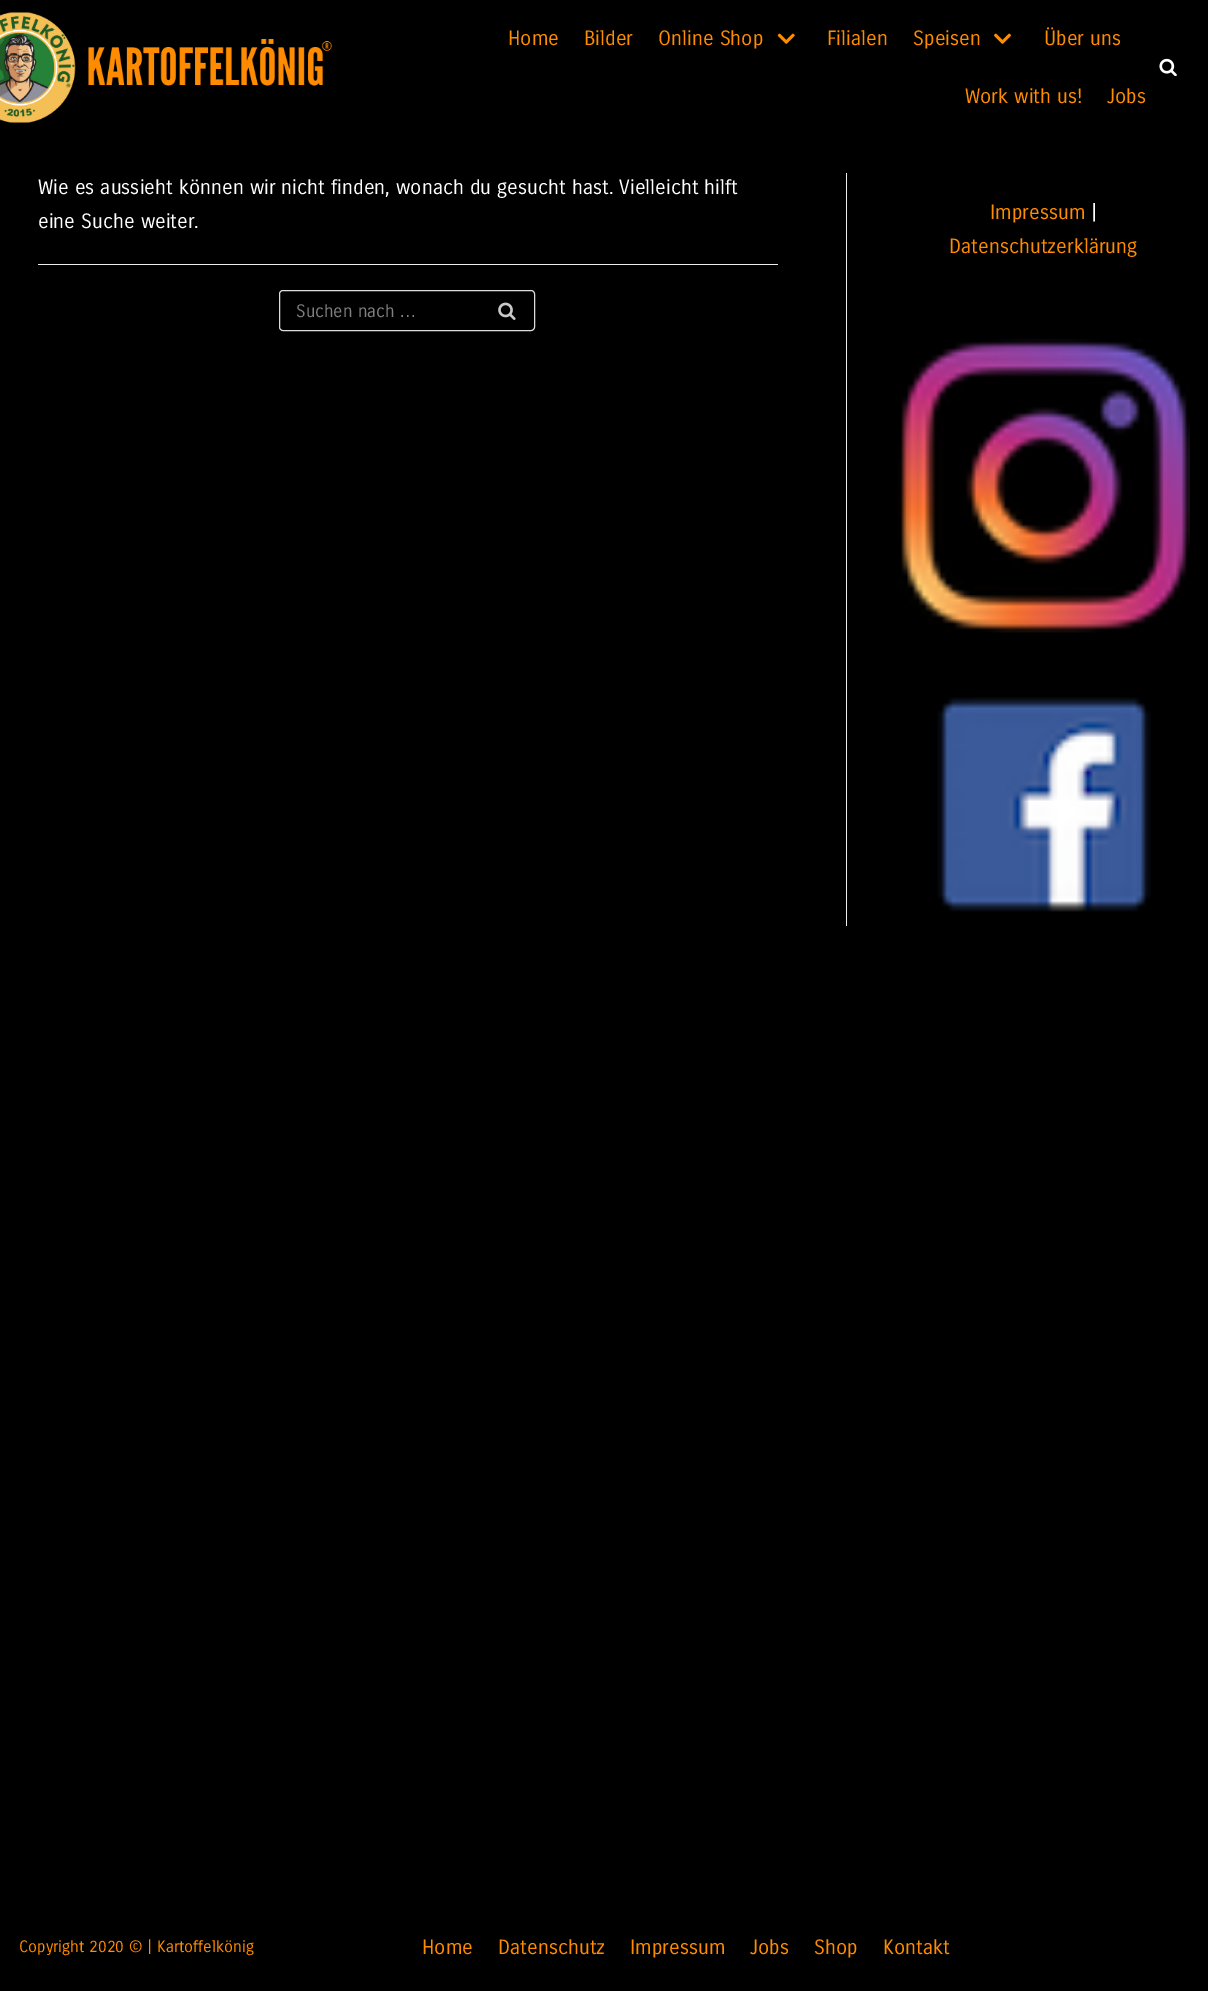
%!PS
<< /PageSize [1208 1991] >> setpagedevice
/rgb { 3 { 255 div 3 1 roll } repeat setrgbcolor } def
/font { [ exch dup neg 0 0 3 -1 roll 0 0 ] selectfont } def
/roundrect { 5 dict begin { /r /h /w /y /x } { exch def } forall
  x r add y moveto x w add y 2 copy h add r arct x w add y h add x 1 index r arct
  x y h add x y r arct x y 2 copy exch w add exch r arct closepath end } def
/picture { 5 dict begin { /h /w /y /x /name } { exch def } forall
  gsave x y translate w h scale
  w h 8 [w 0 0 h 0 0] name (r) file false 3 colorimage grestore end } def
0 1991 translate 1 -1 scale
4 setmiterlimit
0 0 0 rgb
0 0 1208 1991 rectfill
(img/1.rgb) 0 12 332 111 picture
(img/2.rgb) 777 33 18 11 picture
(img/3.rgb) 994 33 17 11 picture
(img/4.rgb) 1159 58 18 18 picture
237 237 237 rgb
38 264 740 1 rectfill
221 221 221 rgb
279.5 290.5 255 40 3.5 roundrect stroke
(img/5.rgb) 498 302 18 18 picture
237 237 237 rgb
846 173 1 753 rectfill
(img/6.rgb) 898 339 292 294 picture
(img/7.rgb) 937 697 214 215 picture
/CarroisGothic-Regular 20 font
255 140 0 rgb
[
  [(Home) 508 45]
  [(Bilder) 584 45]
  [(Online Shop) 658 45]
  [(Filialen) 827 45]
  [(Speisen) 913 45]
  [(Über uns) 1044 45]
  [(Work with us!) 965 103]
  [(Jobs) 1107 103]
] { aload pop moveto show } forall
255 255 255 rgb
38 194 moveto (Wie es aussieht können wir nicht finden, wonach du gesucht hast. Vielleicht hilft) show
38 228 moveto (eine Suche weiter.) show
/CarroisGothic-Regular 17.5 font
128 128 128 rgb
296 317 moveto (Suchen nach) show
/LiberationSans-Regular 17.5 font
399 317 moveto (…) show
/CarroisGothic-Regular 20 font
255 140 0 rgb
990 219 moveto (Impressum) show
255 255 255 rgb
1091 219 moveto (|) show
255 140 0 rgb
949 253 moveto (Datenschutzerklärung) show
/CarroisGothic-Regular 16 font
19 1952 moveto (Copyright 2020 © | Kartoffelkönig) show
/CarroisGothic-Regular 20 font
[
  [(Home) 422 1954]
  [(Datenschutz) 498 1954]
  [(Impressum) 630 1954]
  [(Jobs) 750 1954]
  [(Shop) 814 1954]
  [(Kontakt) 883 1954]
] { aload pop moveto show } forall
showpage
